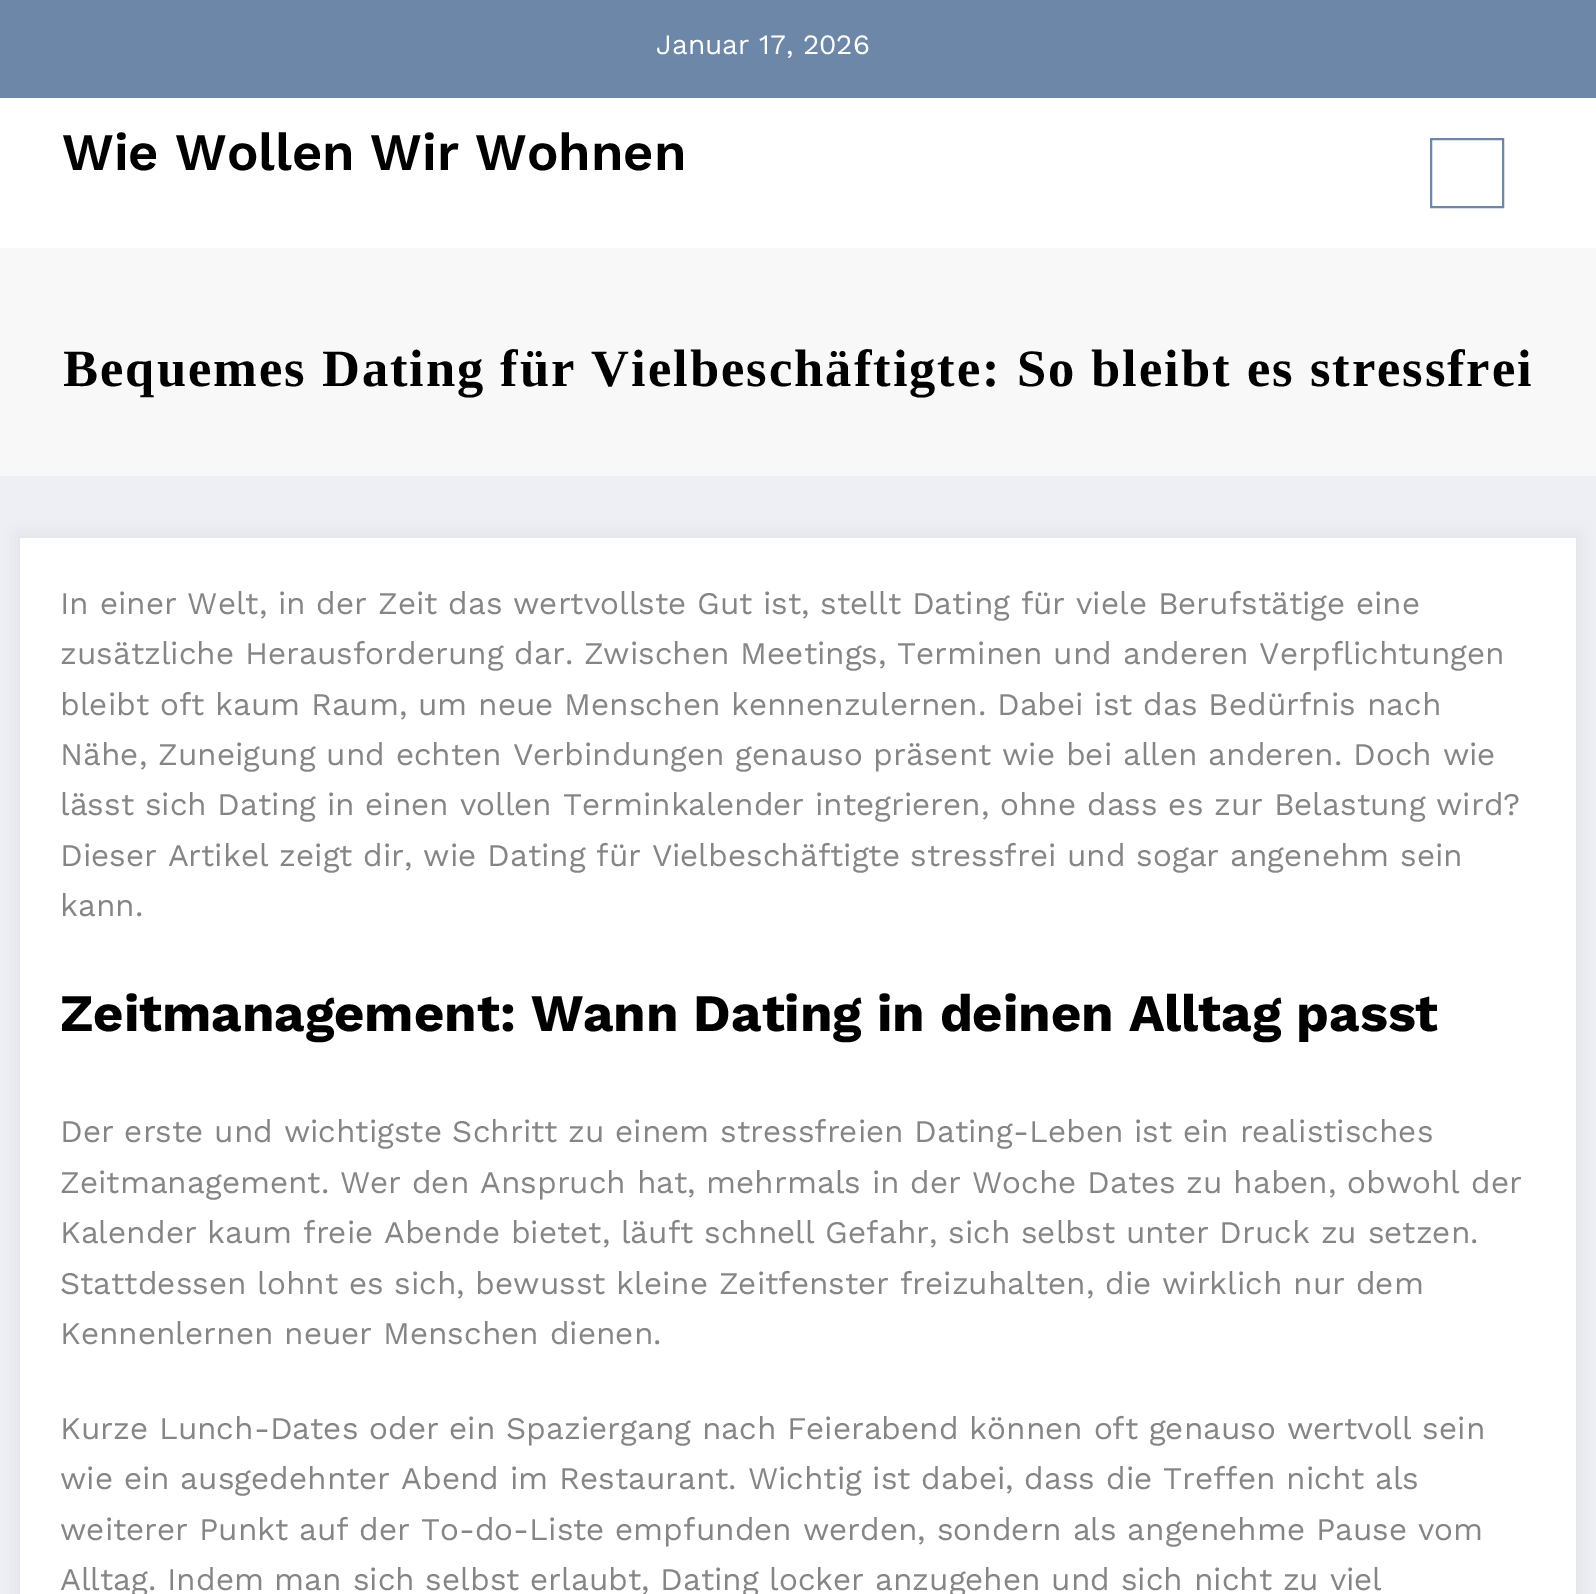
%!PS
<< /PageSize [1596 1594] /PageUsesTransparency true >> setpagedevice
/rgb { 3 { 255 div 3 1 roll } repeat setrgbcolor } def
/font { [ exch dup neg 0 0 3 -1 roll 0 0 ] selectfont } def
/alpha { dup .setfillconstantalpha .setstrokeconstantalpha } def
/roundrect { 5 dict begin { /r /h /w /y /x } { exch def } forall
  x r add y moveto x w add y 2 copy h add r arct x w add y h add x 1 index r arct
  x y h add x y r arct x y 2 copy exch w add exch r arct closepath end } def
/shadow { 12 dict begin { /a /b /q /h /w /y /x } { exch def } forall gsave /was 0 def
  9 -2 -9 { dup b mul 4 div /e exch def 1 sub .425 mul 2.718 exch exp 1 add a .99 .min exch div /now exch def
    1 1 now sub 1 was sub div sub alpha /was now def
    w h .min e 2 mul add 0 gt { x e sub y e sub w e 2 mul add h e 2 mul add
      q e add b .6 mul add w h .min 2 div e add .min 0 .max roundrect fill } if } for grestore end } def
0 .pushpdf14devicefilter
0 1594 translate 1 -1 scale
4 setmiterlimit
238 238 245 rgb
0 0 1596 1594 rectfill
109 135 168 rgb
0 0 1596 98 rectfill
255 255 255 rgb
0 98 1596 150 rectfill
109 135 168 rgb
2 setlinewidth
1431 139 72 68 rectstroke
248 248 248 rgb
0 248 1596 228 rectfill
23 23 35 rgb
16 534 1564 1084 0 8 0.05 shadow
255 255 255 rgb
20 538 1556 1056 rectfill
/WorkSans-Regular 28 font
656 54 moveto (Januar 17, 2026) show
/WorkSans-SemiBold 52.5 font
0 0 0 rgb
62 170 moveto (Wie Wollen Wir Wohnen) show
/LiberationSerif-Bold 52.5 font
63 386 moveto 2 0 (Bequemes Dating für Vielbeschäftigte: So bleibt es stressfrei) ashow
/WorkSans-Regular 31.5 font
133 133 133 rgb
[
  [(In einer Welt, in der Zeit das wertvollste Gut ist, stellt Dating für viele Berufstätige eine) 60 614]
  [(zusätzliche Herausforderung dar. Zwischen Meetings, Terminen und anderen Verpflichtungen) 60 664]
  [(bleibt oft kaum Raum, um neue Menschen kennenzulernen. Dabei ist das Bedürfnis nach) 60 715]
  [(Nähe, Zuneigung und echten Verbindungen genauso präsent wie bei allen anderen. Doch wie) 60 765]
  [(lässt sich Dating in einen vollen Terminkalender integrieren, ohne dass es zur Belastung wird?) 60 815]
  [(Dieser Artikel zeigt dir, wie Dating für Vielbeschäftigte stressfrei und sogar angenehm sein) 60 866]
  [(kann.) 60 916]
] { aload pop moveto show } forall
/WorkSans-Bold 52.5 font
0 0 0 rgb
60 1031 moveto (Zeitmanagement: Wann Dating in deinen Alltag passt) show
/WorkSans-Regular 31.5 font
133 133 133 rgb
[
  [(Der erste und wichtigste Schritt zu einem stressfreien Dating-Leben ist ein realistisches) 60 1142]
  [(Zeitmanagement. Wer den Anspruch hat, mehrmals in der Woche Dates zu haben, obwohl der) 60 1193]
  [(Kalender kaum freie Abende bietet, läuft schnell Gefahr, sich selbst unter Druck zu setzen.) 60 1243]
  [(Stattdessen lohnt es sich, bewusst kleine Zeitfenster freizuhalten, die wirklich nur dem) 60 1294]
  [(Kennenlernen neuer Menschen dienen.) 60 1344]
  [(Kurze Lunch-Dates oder ein Spaziergang nach Feierabend können oft genauso wertvoll sein) 60 1439]
  [(wie ein ausgedehnter Abend im Restaurant. Wichtig ist dabei, dass die Treffen nicht als) 60 1489]
  [(weiterer Punkt auf der To-do-Liste empfunden werden, sondern als angenehme Pause vom) 60 1540]
  [(Alltag. Indem man sich selbst erlaubt, Dating locker anzugehen und sich nicht zu viel) 60 1590]
] { aload pop moveto show } forall
.poppdf14devicefilter showpage
